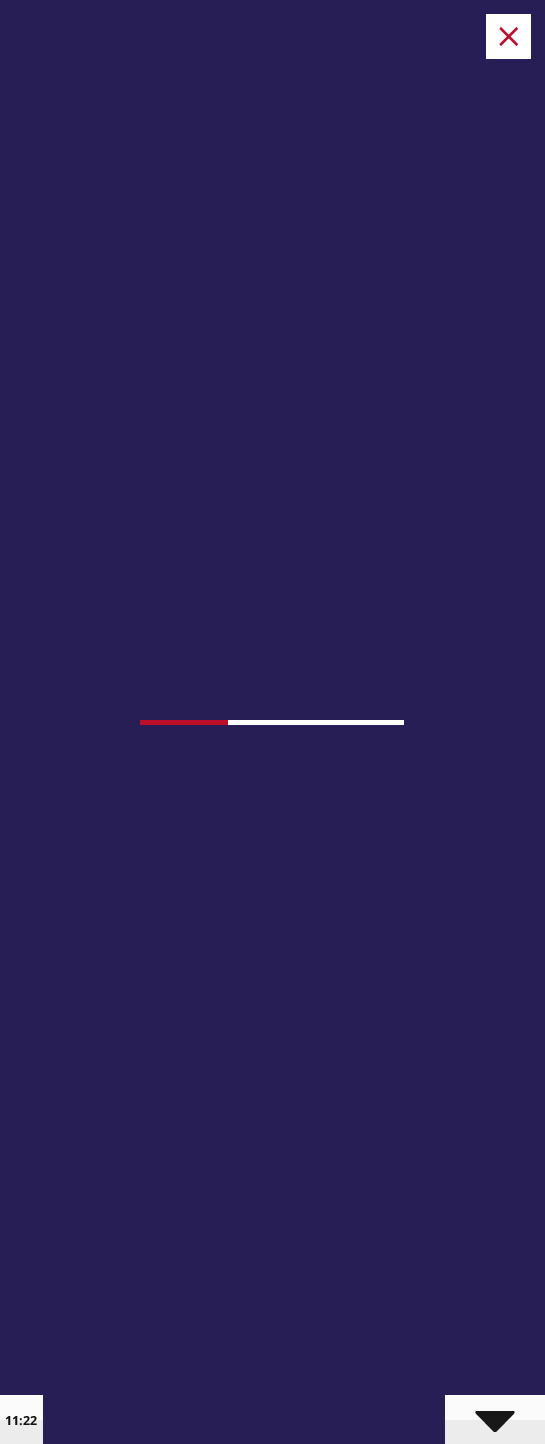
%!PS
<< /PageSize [545 1444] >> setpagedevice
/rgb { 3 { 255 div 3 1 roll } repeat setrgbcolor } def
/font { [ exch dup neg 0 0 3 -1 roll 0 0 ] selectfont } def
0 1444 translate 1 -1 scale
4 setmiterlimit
39 30 85 rgb
0 0 545 1444 rectfill
255 255 255 rgb
486 14 45 45 rectfill
186 14 41 rgb
499.5 44 moveto 516.5 27 lineto 518 29 lineto 501 46 lineto closepath fill
516.5 46 moveto 499.5 29 lineto 501 27 lineto 518 44 lineto closepath fill
[
  [228 720 176 5 255 255 255]
  [140 720 88 5 186 14 41]
  [0 1395 43 25 251 251 251]
  [0 1420 43 24 236 236 236]
  [445 1395 100 25 251 251 251]
  [445 1420 100 24 236 236 236]
] { aload pop rgb rectfill } forall
24 24 24 rgb
496 1432 moveto 514 1413.5 lineto 515 1412.5 514.5 1411 513 1411 curveto 477 1411 lineto 475.5 1411 475 1412.5 476 1413.5 curveto 494 1432 lineto 494.5 1432 495.5 1432 496 1432 curveto closepath fill
/OpenSans-Bold 12.5 font
17 17 17 rgb
5 1425 moveto (11:22) show
showpage
